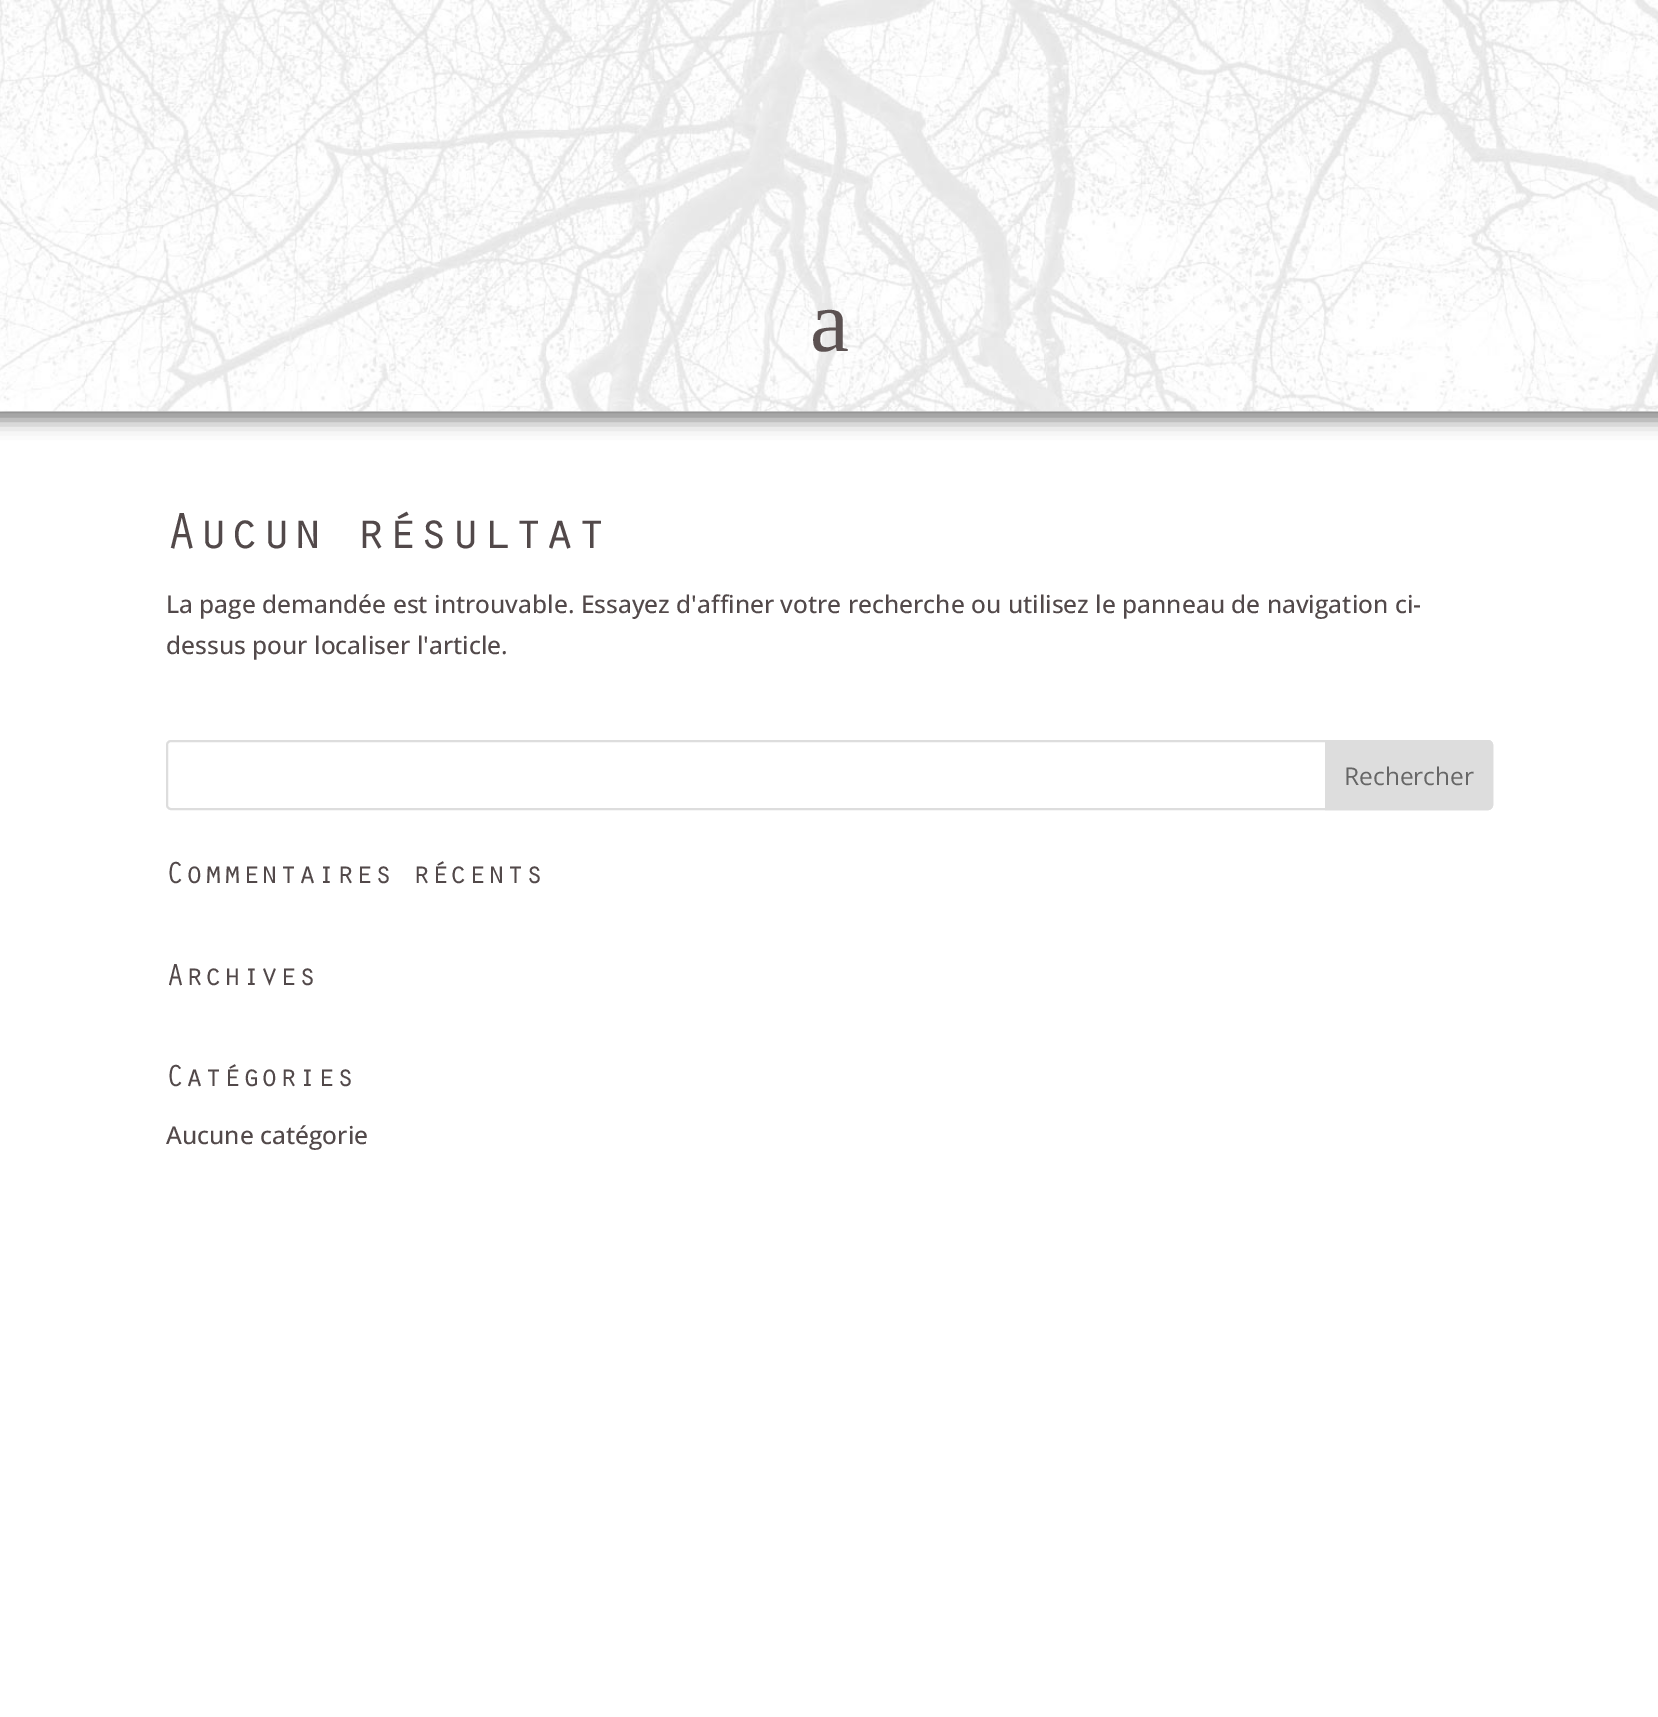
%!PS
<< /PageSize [1658 1717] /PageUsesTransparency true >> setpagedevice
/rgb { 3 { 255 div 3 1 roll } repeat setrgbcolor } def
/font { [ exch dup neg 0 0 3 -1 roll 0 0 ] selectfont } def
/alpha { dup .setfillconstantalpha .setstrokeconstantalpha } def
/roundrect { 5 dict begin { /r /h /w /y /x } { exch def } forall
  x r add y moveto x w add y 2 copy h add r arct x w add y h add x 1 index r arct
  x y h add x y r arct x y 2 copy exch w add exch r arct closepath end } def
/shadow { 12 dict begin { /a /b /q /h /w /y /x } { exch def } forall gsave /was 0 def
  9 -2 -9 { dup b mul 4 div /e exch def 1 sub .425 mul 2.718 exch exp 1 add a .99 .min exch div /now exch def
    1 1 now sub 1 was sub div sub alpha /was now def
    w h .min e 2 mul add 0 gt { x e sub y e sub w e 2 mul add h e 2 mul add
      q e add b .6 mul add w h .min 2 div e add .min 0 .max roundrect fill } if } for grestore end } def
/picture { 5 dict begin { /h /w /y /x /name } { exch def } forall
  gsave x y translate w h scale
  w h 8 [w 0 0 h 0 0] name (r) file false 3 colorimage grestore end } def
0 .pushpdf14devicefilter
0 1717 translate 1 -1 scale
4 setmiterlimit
255 255 255 rgb
0 0 1658 1717 rectfill
0 0 0 rgb
-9 -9 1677 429 0 9 0.5 shadow
(img/1.rgb) 0 0 1658 412 picture
221 221 221 rgb
2 setlinewidth
167 741 1325 68 4 roundrect stroke
1326 741 moveto 1488 741 lineto 1490 741 1492 743 1492 745 curveto 1492 805 lineto 1492 807 1490 809 1488 809 curveto 1326 809 lineto closepath gsave fill grestore
stroke
/LiberationSerif-Regular 88 font
92 82 82 rgb
810 351 moveto (a) show
/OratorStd-Regular 52.5 font
82 73 74 rgb
166 548 moveto (Aucun résultat) show
/OpenSans-Medium 24.5 font
166 613 moveto (La page demandée est introuvable. Essayez d'affiner votre recherche ou utilisez le panneau de navigation ci-) show
166 654 moveto (dessus pour localiser l'article.) show
/OpenSans-Regular 24.5 font
102 102 102 rgb
1344 785 moveto (Rechercher) show
/OratorStd-Regular 31.5 font
82 73 74 rgb
[
  [(Commentaires récents) 166 883]
  [(Archives) 166 985]
  [(Catégories) 166 1086]
] { aload pop moveto show } forall
/OpenSans-Medium 24.5 font
166 1144 moveto (Aucune catégorie) show
.poppdf14devicefilter showpage
